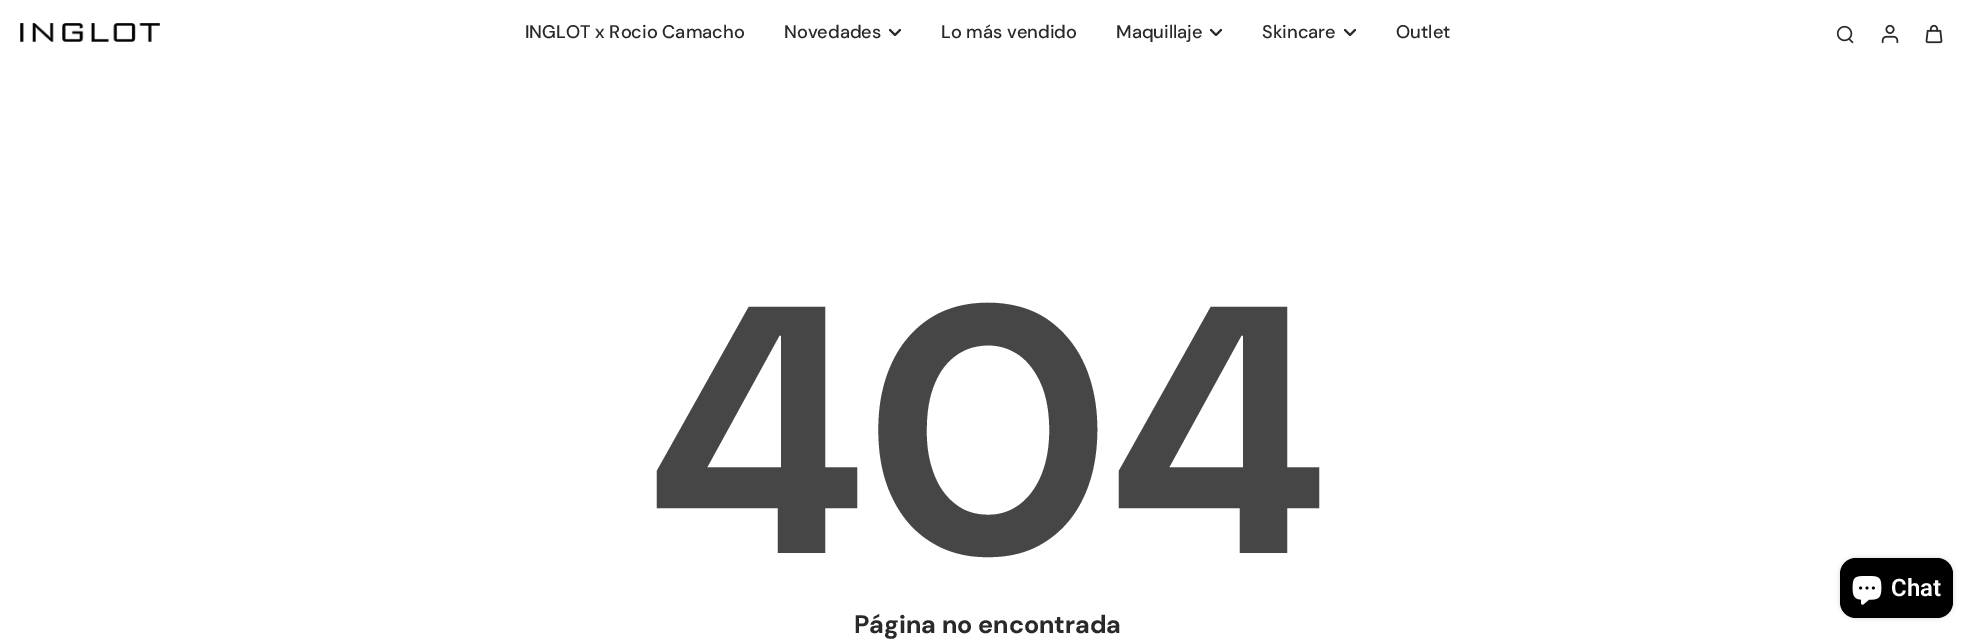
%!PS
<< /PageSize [1975 639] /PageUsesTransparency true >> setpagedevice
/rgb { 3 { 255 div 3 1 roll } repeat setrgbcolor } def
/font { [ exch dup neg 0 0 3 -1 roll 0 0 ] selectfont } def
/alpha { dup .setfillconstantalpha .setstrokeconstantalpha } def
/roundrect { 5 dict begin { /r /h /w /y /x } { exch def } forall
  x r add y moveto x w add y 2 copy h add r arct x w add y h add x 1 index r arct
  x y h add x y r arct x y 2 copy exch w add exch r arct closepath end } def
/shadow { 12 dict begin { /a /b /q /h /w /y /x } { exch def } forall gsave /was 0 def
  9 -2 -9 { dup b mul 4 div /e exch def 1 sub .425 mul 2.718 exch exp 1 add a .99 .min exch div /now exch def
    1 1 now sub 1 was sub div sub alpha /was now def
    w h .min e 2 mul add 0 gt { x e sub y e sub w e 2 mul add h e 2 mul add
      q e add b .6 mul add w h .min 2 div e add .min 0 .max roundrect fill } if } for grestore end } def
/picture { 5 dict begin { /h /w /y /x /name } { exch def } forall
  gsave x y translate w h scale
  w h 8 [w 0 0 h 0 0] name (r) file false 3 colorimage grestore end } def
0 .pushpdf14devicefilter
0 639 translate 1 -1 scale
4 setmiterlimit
255 255 255 rgb
0 0 1975 639 rectfill
(img/1.rgb) 20 23 140 19 picture
40 41 40 rgb
2 setlinewidth
1 setlinecap
1 setlinejoin
890 30 moveto 895 35 lineto 900 30 lineto stroke
1211 30 moveto 1216 35 lineto 1221 30 lineto stroke
1345 30 moveto 1350 35 lineto 1355 30 lineto stroke
(img/2.rgb) 1836 25 18 19 picture
(img/3.rgb) 1881 24 18 20 picture
(img/4.rgb) 1925 24 18 20 picture
0 0 0 rgb
1840 558 113 60 16 2.5 0.15 shadow
1840 558 113 60 16 roundrect fill
(img/5.rgb) 1852 576 30 29 picture
/DMSans-Medium 18.25 font
40 41 40 rgb
[
  [(INGLOT x Rocio Camacho) 525 38]
  [(Novedades) 784 38]
  [(Lo más vendido) 941 38]
  [(Maquillaje) 1116 38]
  [(Skincare) 1262 38]
  [(Outlet) 1396 38]
] { aload pop moveto show } forall
/DMSans-Bold 352 font
69 70 69 rgb
648 553 moveto (404) show
/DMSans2-Bold 25.25 font
40 41 40 rgb
854 633 moveto (Página no encontrada) show
/Roboto-SemiBold 24 font
255 255 255 rgb
1891 596 moveto (Chat) show
.poppdf14devicefilter showpage
